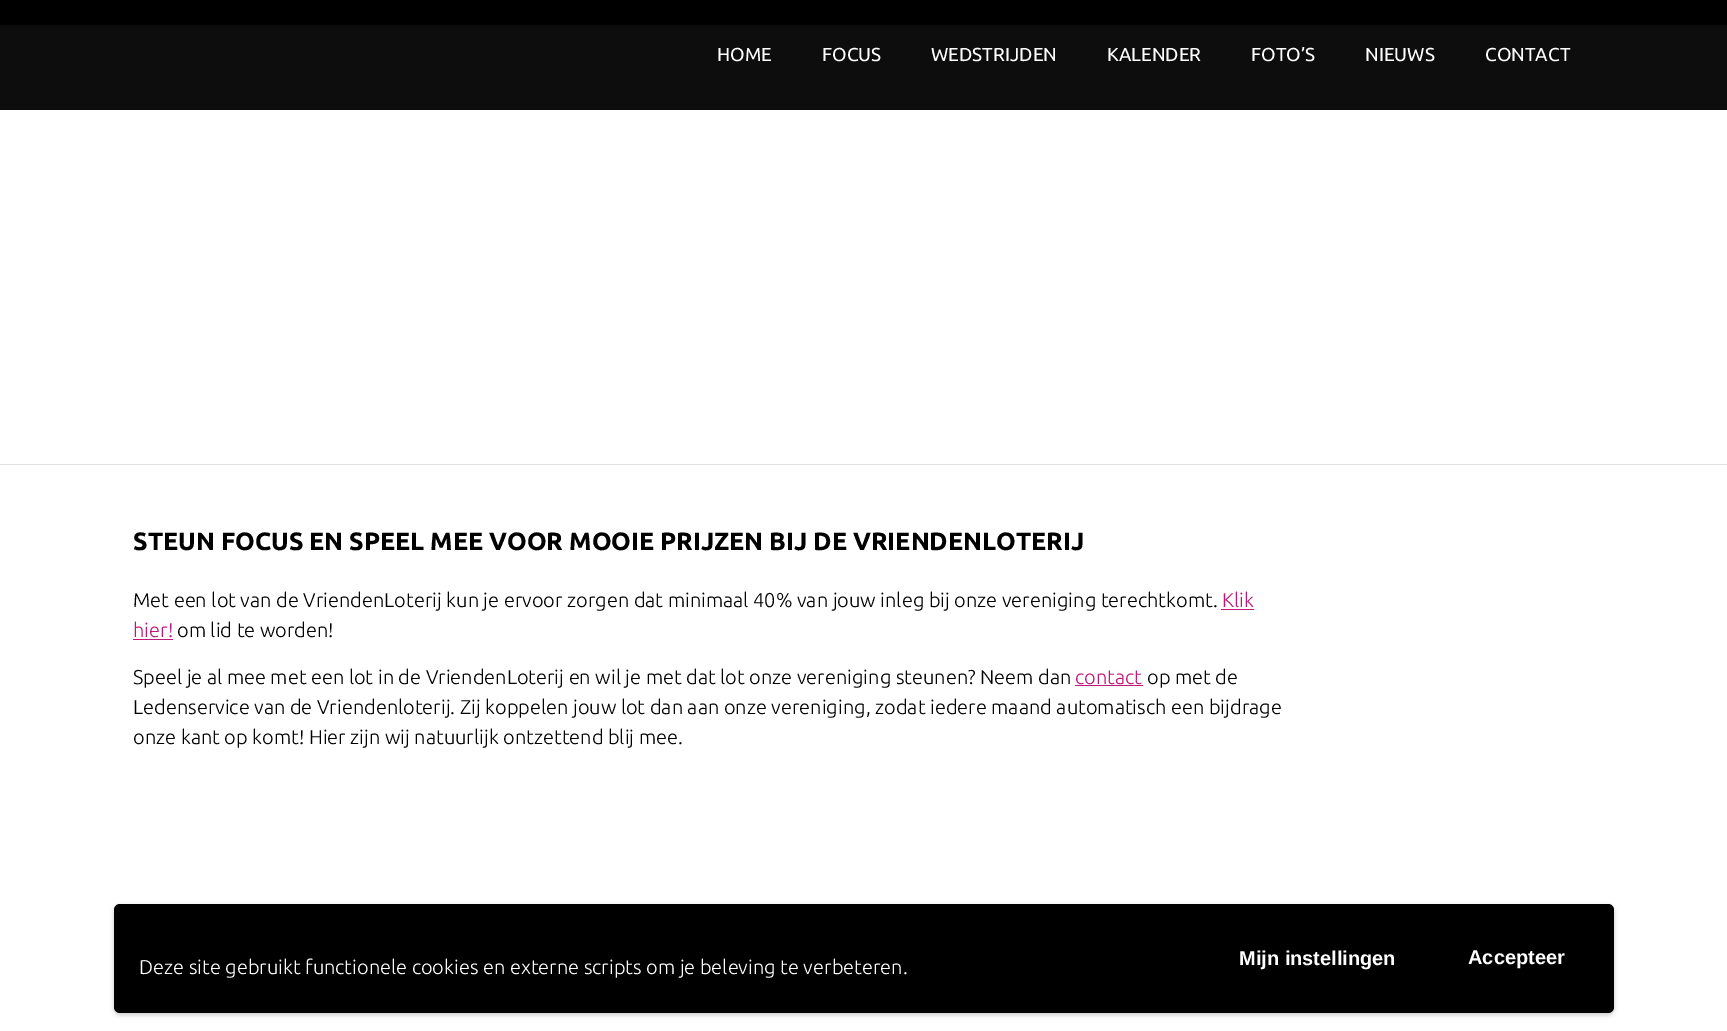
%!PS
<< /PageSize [1727 1031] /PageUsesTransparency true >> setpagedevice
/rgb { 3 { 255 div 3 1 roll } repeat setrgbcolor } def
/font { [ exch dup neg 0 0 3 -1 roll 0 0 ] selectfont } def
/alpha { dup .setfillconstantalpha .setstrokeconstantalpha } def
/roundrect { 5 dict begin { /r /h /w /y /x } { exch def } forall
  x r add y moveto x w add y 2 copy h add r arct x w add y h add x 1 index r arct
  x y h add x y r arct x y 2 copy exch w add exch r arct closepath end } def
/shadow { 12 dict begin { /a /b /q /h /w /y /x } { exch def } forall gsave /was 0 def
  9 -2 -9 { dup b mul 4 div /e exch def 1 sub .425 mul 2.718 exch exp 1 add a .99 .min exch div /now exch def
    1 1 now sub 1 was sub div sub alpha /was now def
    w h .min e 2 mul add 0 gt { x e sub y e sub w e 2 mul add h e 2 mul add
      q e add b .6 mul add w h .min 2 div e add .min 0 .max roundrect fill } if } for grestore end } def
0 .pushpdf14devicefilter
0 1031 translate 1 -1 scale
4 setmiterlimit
0 0 0 rgb
0 0 1727 1031 rectfill
[
  [0 110 1727 354 255 255 255]
  [0 25 1727 85 13 13 13]
  [0 465 1727 566 255 255 255]
  [0 464 1727 1 225 225 225]
  [1221 609 33 1 190 25 122]
  [133 639 40 1 190 25 122]
  [1075 685 68 1 190 25 122]
] { aload pop rgb rectfill } forall
0 0 0 rgb
114 906 1500 109 6 2.5 0.2 shadow
114 904 1500 109 6 roundrect fill
/Ubuntu-Regular 18.75 font
255 255 255 rgb
[
  [(HOME) 717 61]
  [(FOCUS) 822 61]
  [(WEDSTRIJDEN) 931 61]
  [(KALENDER) 1107 61]
  [(FOTO’S) 1251 61]
  [(NIEUWS) 1365 61]
  [(CONTACT) 1485 61]
] { aload pop moveto show } forall
/Ubuntu-Bold 25 font
0 0 0 rgb
133 550 moveto (STEUN FOCUS EN SPEEL MEE VOOR MOOIE PRIJZEN BIJ DE VRIENDENLOTERIJ) show
/Ubuntu-Light 20 font
133 607 moveto (Met een lot van de VriendenLoterij kun je ervoor zorgen dat minimaal 40% van jouw inleg bij onze vereniging terechtkomt.) show
190 25 122 rgb
1222 607 moveto (Klik) show
133 637 moveto (hier!) show
0 0 0 rgb
177 637 moveto (om lid te worden!) show
133 684 moveto (Speel je al mee met een lot in de VriendenLoterij en wil je met dat lot onze vereniging steunen? Neem dan) show
190 25 122 rgb
1075 684 moveto (contact) show
0 0 0 rgb
[
  [(op met de) 1147 684]
  [(Ledenservice van de Vriendenloterij. Zij koppelen jouw lot dan aan onze vereniging, zodat iedere maand automatisch een bijdrage) 133 714]
  [(onze kant op komt! Hier zijn wij natuurlijk ontzettend blij mee.) 133 744]
] { aload pop moveto show } forall
255 255 255 rgb
139 974 moveto (Deze site gebruikt functionele cookies en externe scripts om je beleving te verbeteren.) show
/LiberationSans-Bold 20 font
1239 965 moveto (Mijn instellingen) show
1468 964 moveto (Accepteer) show
.poppdf14devicefilter showpage
